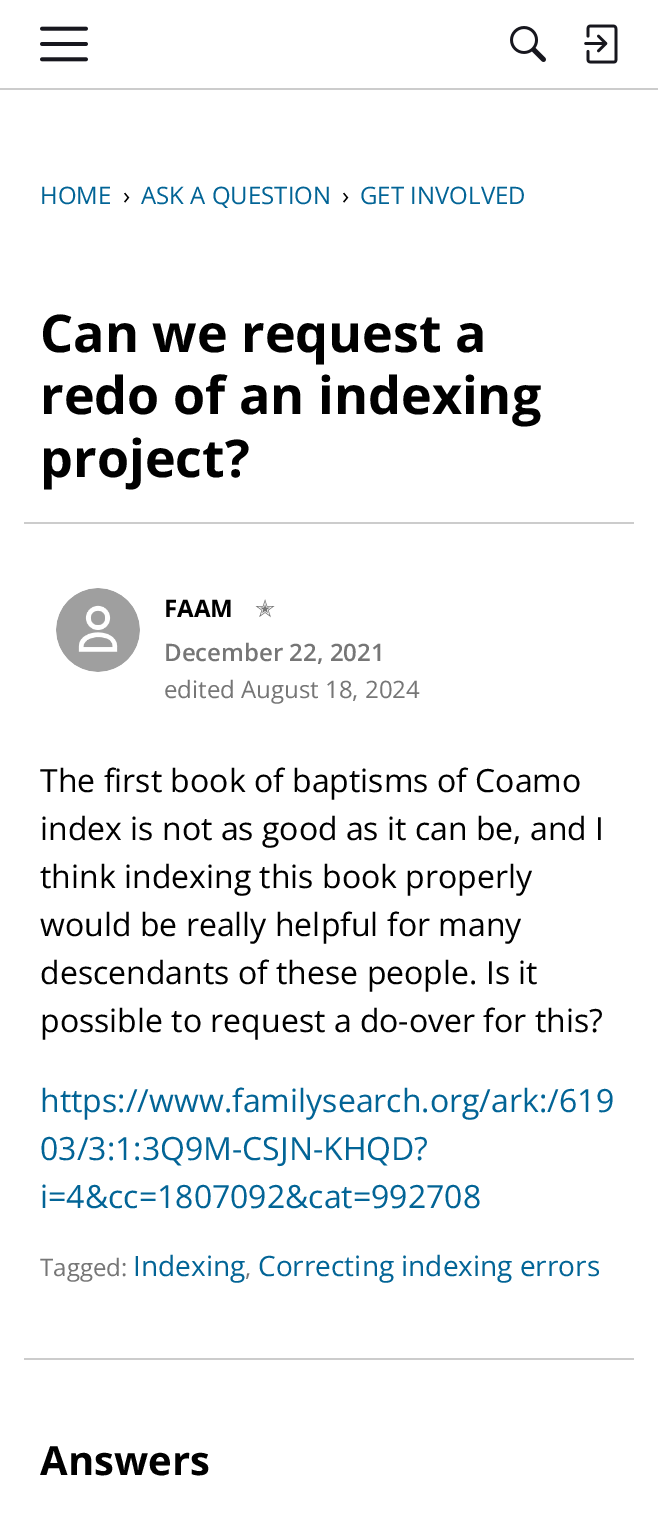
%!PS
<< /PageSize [658 1514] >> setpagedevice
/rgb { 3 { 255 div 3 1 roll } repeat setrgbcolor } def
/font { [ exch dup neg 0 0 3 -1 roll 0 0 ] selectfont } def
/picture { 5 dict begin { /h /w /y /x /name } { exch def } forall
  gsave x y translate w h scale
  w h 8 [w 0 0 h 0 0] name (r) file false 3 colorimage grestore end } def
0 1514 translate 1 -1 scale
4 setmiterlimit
255 255 255 rgb
0 0 658 1514 rectfill
204 204 204 rgb
0 88 658 2 rectfill
(img/1.rgb) 40 26 48 36 picture
(img/2.rgb) 510 26 36 36 picture
(img/3.rgb) 584 24 34 40 picture
24 522 610 2 rectfill
(img/4.rgb) 56 588 84 84 picture
24 1358 610 2 rectfill
/OpenSans-Regular 24 font
2 100 150 rgb
40 204 moveto (HOME) show
0 0 0 rgb
123 204 moveto (›) show
2 100 150 rgb
141 204 moveto (ASK A QUESTION) show
0 0 0 rgb
342 204 moveto (›) show
2 100 150 rgb
360 204 moveto (GET INVOLVED) show
/OpenSans-Bold 52 font
0 0 0 rgb
[
  [(Can we request a) 40 352]
  [(redo of an indexing) 40 414]
  [(project?) 40 477]
] { aload pop moveto show } forall
/OpenSans-Bold 24 font
164 617 moveto (FAAM) show
/DejaVuSans-Regular 24 font
118 118 118 rgb
255 617 moveto (✭) show
/OpenSans-SemiBold 24 font
164 661 moveto (December 22, 2021) show
/OpenSans-Regular 24 font
164 698 moveto (edited August 18, 2024) show
/OpenSans-Regular 32 font
0 0 0 rgb
[
  [(The first book of baptisms of Coamo) 40 792]
  [(index is not as good as it can be, and I) 40 840]
  [(think indexing this book properly) 40 888]
  [(would be really helpful for many) 40 936]
  [(descendants of these people. Is it) 40 984]
  [(possible to request a do-over for this?) 40 1032]
] { aload pop moveto show } forall
2 100 150 rgb
[
  [(https://www.familysearch.org/ark:/619) 40 1112]
  [(03/3:1:3Q9M-CSJN-KHQD?) 40 1160]
  [(i=4&cc=1807092&cat=992708) 40 1208]
] { aload pop moveto show } forall
/OpenSans-Regular 24 font
118 118 118 rgb
40 1276 moveto (Tagged:) show
/OpenSans-Regular 28 font
2 100 150 rgb
133 1276 moveto (Indexing) show
/OpenSans-Regular 24 font
118 118 118 rgb
245 1276 moveto (,) show
/OpenSans-Regular 28 font
2 100 150 rgb
258 1276 moveto (Correcting indexing errors) show
/OpenSans-Bold 40 font
0 0 0 rgb
40 1475 moveto (Answers) show
showpage
